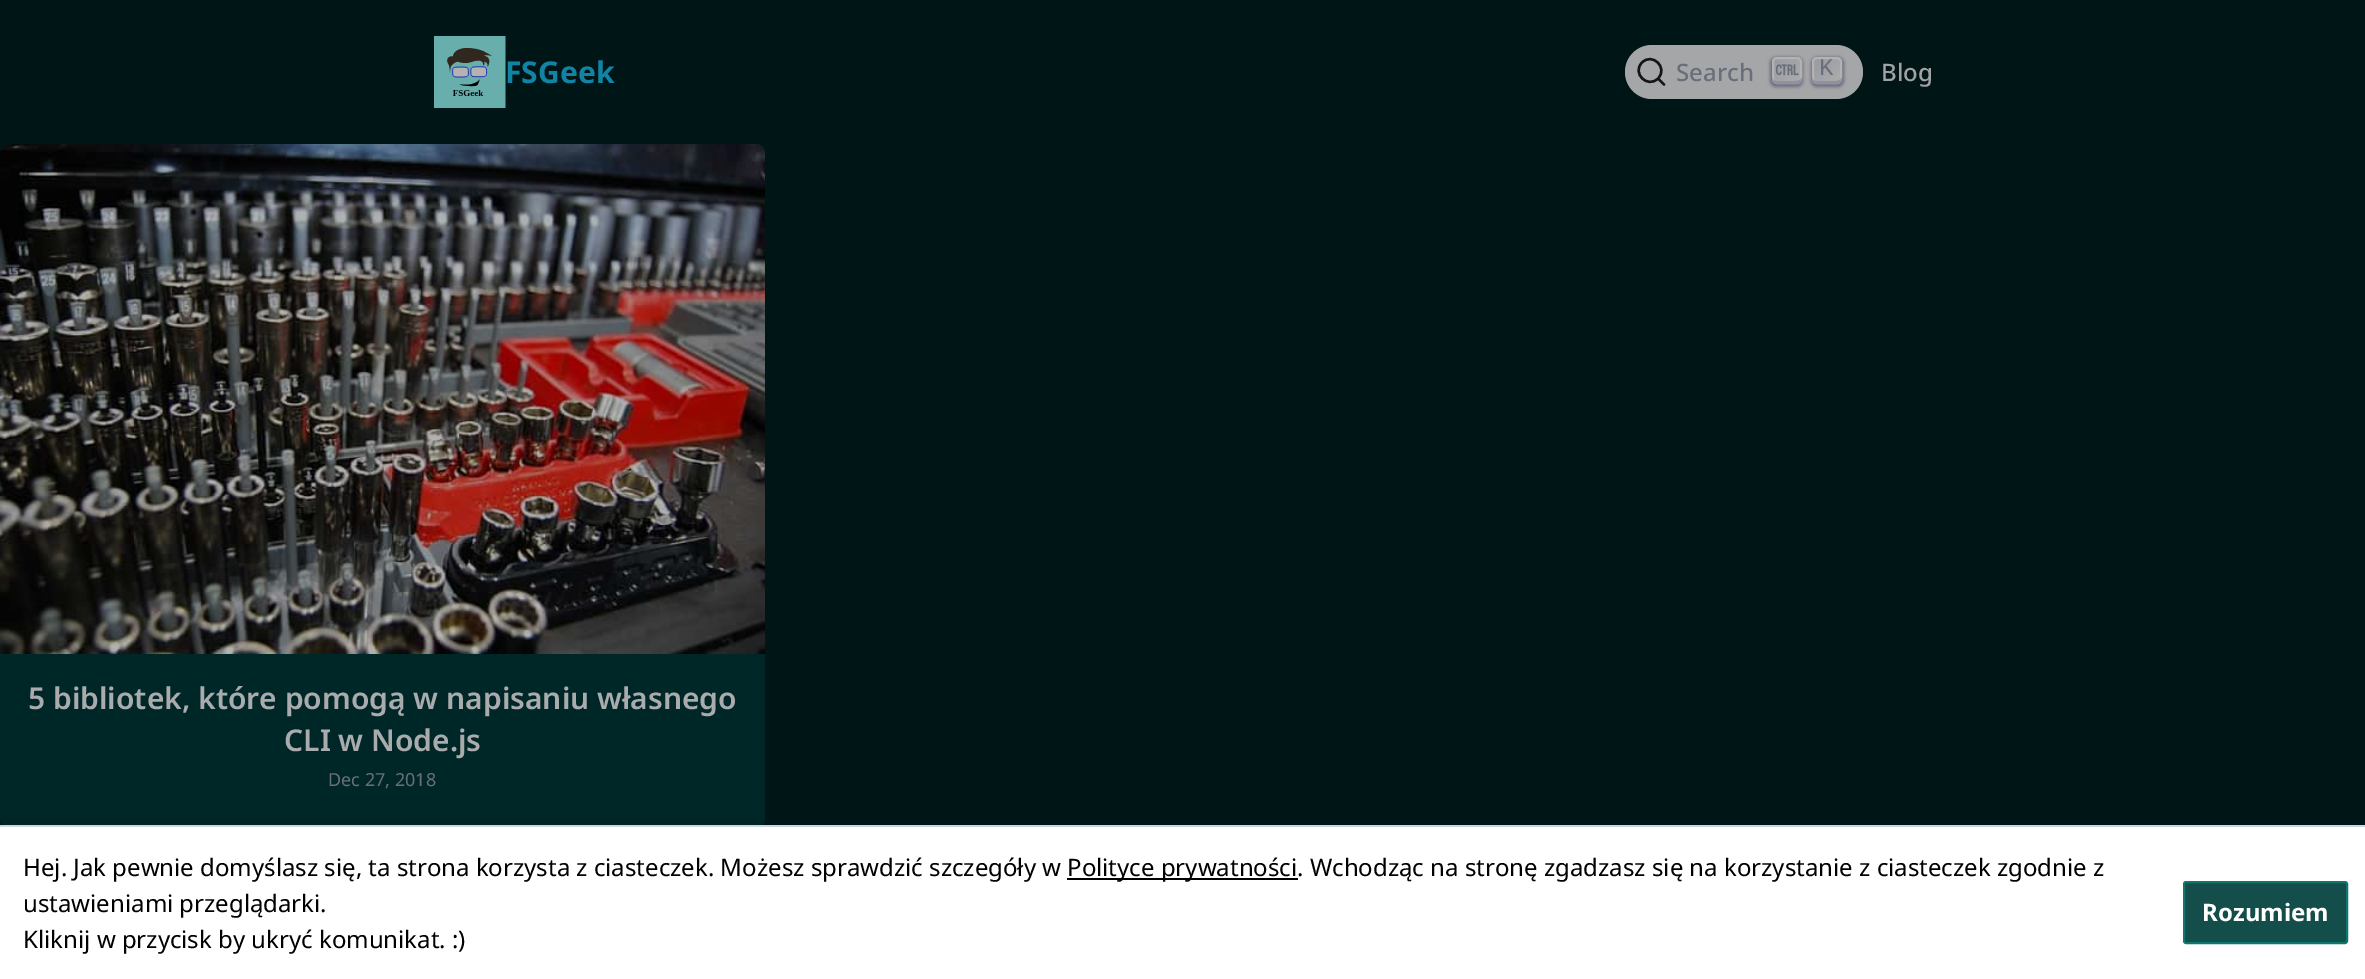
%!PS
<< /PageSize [2365 979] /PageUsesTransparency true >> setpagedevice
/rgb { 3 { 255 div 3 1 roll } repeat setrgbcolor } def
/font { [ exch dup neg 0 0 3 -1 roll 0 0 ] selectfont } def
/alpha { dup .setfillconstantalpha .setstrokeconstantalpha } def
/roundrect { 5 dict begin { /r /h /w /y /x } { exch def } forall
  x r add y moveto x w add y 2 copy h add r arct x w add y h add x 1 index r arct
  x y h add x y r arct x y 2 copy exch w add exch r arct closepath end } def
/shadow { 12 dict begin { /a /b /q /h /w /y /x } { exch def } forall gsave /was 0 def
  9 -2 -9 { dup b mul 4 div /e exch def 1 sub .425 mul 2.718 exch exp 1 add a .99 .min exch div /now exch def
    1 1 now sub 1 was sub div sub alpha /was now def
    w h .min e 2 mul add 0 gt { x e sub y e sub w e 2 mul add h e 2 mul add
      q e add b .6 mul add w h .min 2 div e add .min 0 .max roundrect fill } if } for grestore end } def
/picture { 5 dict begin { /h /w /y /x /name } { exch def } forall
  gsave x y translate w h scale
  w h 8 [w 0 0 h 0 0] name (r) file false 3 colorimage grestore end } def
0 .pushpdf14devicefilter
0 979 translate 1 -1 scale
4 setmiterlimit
0 22 22 rgb
0 0 2365 979 rectfill
(img/1.rgb) 434 36 72 72 picture
165 166 168 rgb
1625 45 238 54 27 roundrect fill
20 21 23 rgb
2.4 setlinewidth
1 setlinecap
1 setlinejoin
1658 78.5 moveto 1664 84.5 lineto 1658 78.5 lineto 1647.5 89 1631.5 73 1642 62.5 curveto 1652.5 52 1668.5 68 1658 78.5 curveto closepath stroke
21 25 63 rgb
1770 57 33 30 6 1.5 0.4 shadow
gsave 1773 58 28 25 4 roundrect clip newpath
<< /ShadingType 2 /ColorSpace /DeviceRGB /Coords [1772 56 1801 85] /Extend [true true] /Function << /FunctionType 2 /Domain [0 1] /C0 [0.584 0.6 0.627] /C1 [0.682 0.682 0.682] /N 1 >> >> shfill grestore
179 179 179 rgb
2 setlinewidth
0 setlinecap
0 setlinejoin
1773 58 28 25 4 roundrect stroke
144 144 161 rgb
1802 77 moveto 1801.5 79.5 1799.5 81 1794 81 curveto 1776 81 lineto 1773.5 81 1772.5 79.5 1772 77.5 curveto 1772 83.5 1774.5 84 1780.5 84 curveto 1793.5 84 lineto 1800 84 1802 83.5 1802 77 curveto closepath fill
(img/2.rgb) 1776 64 23 12 picture
21 25 63 rgb
1811 57 33 30 6 1.5 0.4 shadow
gsave 1813 58 28 25 4 roundrect clip newpath
<< /ShadingType 2 /ColorSpace /DeviceRGB /Coords [1813 56 1841 85] /Extend [true true] /Function << /FunctionType 2 /Domain [0 1] /C0 [0.584 0.6 0.627] /C1 [0.682 0.682 0.682] /N 1 >> >> shfill grestore
179 179 179 rgb
1813 58 28 25 4 roundrect stroke
144 144 161 rgb
1842 77 moveto 1841.5 79.5 1839.5 81 1834 81 curveto 1816 81 lineto 1813.5 81 1812.5 79.5 1812 77.5 curveto 1812 83.5 1814.5 84 1820.5 84 curveto 1833.5 84 lineto 1840 84 1842 83.5 1842 77 curveto closepath fill
0 39 40 rgb
0 144 765 684 9 roundrect fill
(img/3.rgb) 0 144 765 510 picture
0 0 0 rgb
-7 831 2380 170 0 7.5 0.5 shadow
[
  [0 827 2365 152 255 255 255]
  [0 825 2365 2 203 214 226]
  [1067 878 231 2 0 0 0]
] { aload pop rgb rectfill } forall
19 78 74 rgb
2184 882 163 61 2 roundrect gsave fill grestore
15 118 110 rgb
stroke
/NotoSans-Bold 30 font
17 132 165 rgb
505 83 moveto (FSGeek) show
/NotoSans-Medium 24 font
105 111 122 rgb
1676 81 moveto (Search) show
/LiberationMono-Regular 24 font
1819 75 moveto (K) show
/NotoSans-Medium 24 font
160 162 165 rgb
1881 81 moveto (Blog) show
/NotoSans-SemiBold 30 font
170 171 172 rgb
28 709 moveto (5 bibliotek, które pomogą w napisaniu własnego) show
284 751 moveto (CLI w Node.js) show
/NotoSans-Regular 18 font
105 111 122 rgb
328 786 moveto (Dec 27, 2018) show
/NotoSans-Regular 24 font
0 0 0 rgb
[
  [(Hej. Jak pewnie domyślasz się, ta strona korzysta z ciasteczek. Możesz sprawdzić szczegóły w) 23 876]
  [(Polityce prywatności. Wchodząc na stronę zgadzasz się na korzystanie z ciasteczek zgodnie z) 1067 876]
  [(ustawieniami przeglądarki.) 23 912]
  [(Kliknij w przycisk by ukryć komunikat. :\)) 23 948]
] { aload pop moveto show } forall
/NotoSans-Bold 24 font
255 255 255 rgb
2202 921 moveto (Rozumiem) show
.poppdf14devicefilter showpage
